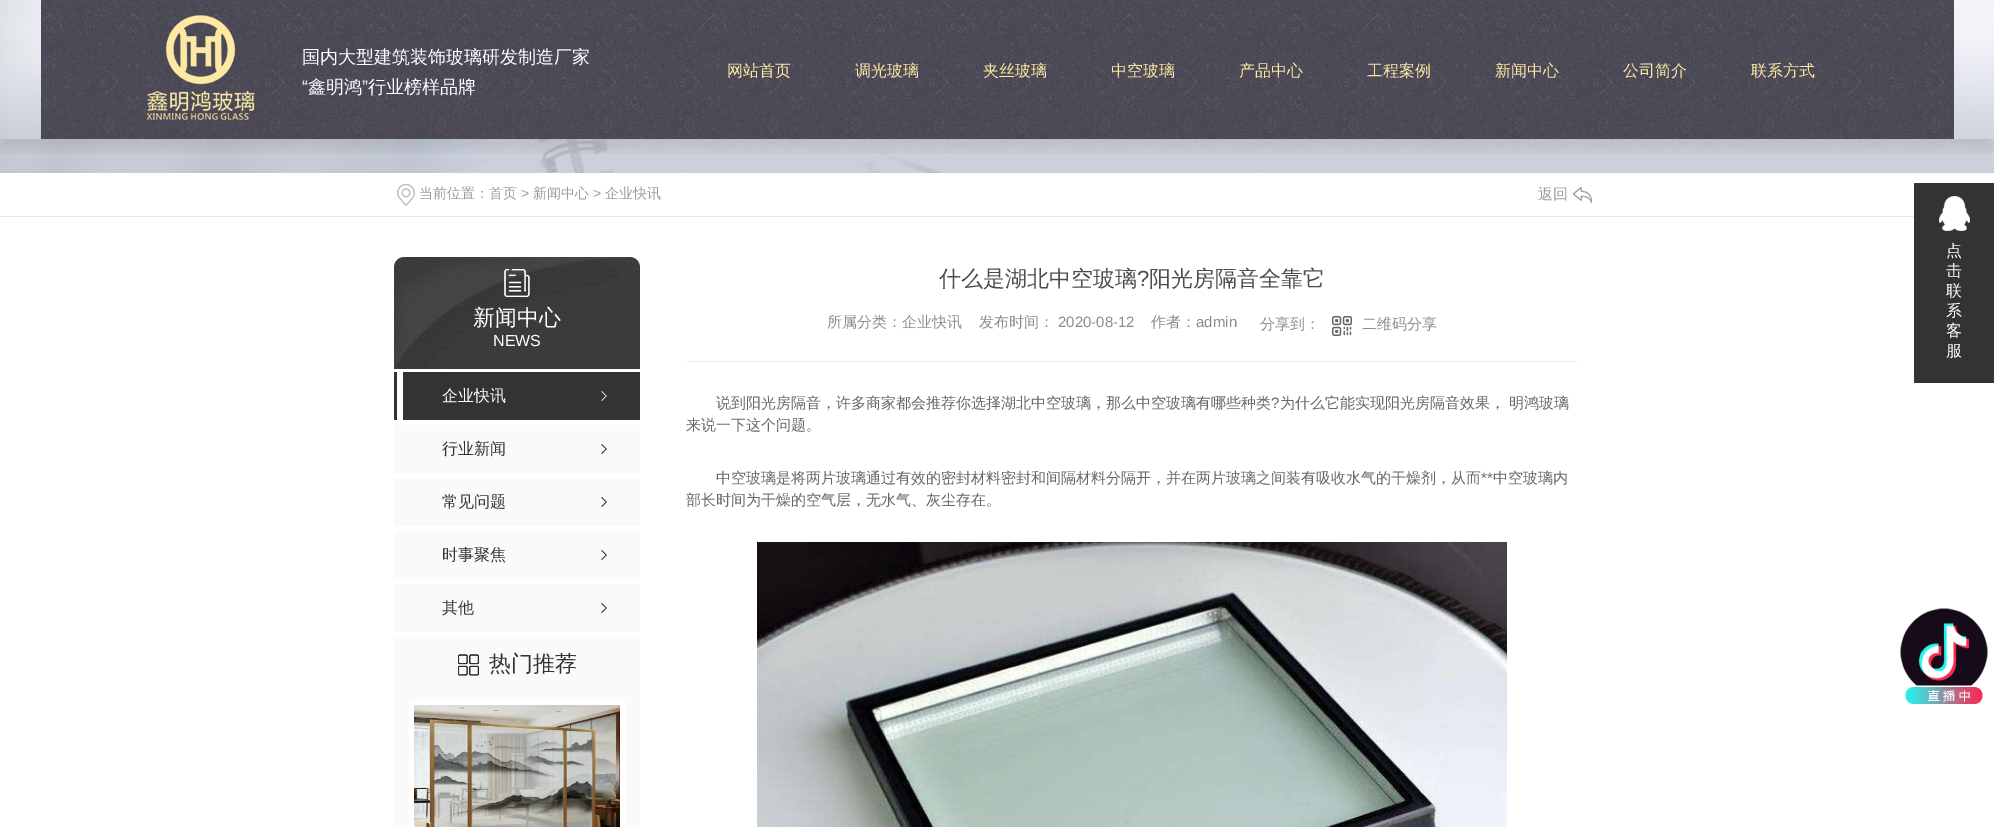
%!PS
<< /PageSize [1994 827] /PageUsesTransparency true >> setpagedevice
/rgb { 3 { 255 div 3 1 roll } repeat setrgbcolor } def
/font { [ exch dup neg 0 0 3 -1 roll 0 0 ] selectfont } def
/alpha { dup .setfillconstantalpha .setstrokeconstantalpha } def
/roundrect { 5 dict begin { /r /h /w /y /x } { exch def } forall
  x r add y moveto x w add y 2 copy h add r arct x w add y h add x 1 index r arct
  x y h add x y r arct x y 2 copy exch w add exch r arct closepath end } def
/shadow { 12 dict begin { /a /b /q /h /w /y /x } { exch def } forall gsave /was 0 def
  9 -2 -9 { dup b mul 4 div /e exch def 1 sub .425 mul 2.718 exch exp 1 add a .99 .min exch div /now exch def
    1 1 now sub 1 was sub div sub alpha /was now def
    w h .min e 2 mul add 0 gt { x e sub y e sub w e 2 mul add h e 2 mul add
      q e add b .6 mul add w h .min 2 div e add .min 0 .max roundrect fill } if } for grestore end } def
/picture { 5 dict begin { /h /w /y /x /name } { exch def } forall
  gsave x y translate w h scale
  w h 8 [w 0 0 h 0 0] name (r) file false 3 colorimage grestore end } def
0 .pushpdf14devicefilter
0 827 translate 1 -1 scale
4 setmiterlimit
255 255 255 rgb
0 0 1994 827 rectfill
(img/1.rgb) 0 0 1994 173 picture
gsave
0 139 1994 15 rectclip
0 0 0 rgb
0 10 1994 139 0 6 0.1 shadow
grestore
(img/2.rgb) 41 0 1913 139 picture
(img/3.rgb) 147 15 108 105 picture
230 230 230 rgb
0 216 1914 1 rectfill
(img/4.rgb) 397 184 18 22 picture
(img/5.rgb) 1573 187 19 16 picture
51 51 51 rgb
404 257 moveto 630 257 lineto 635.5 257 640 261.5 640 267 curveto 640 369 lineto 394 369 lineto 394 267 lineto 394 261.5 398.5 257 404 257 curveto closepath fill
(img/6.rgb) 394 257 246 112 picture
(img/7.rgb) 504 269 26 28 picture
394 372 246 48 rectfill
255 255 255 rgb
397 372 6 48 rectfill
(img/8.rgb) 601 391 6 10 picture
250 250 250 rgb
394 425 246 48 rectfill
(img/9.rgb) 601 444 6 10 picture
394 478 246 48 rectfill
(img/9.rgb) 601 497 6 10 picture
394 531 246 48 rectfill
(img/9.rgb) 601 550 6 10 picture
394 584 246 48 rectfill
(img/9.rgb) 601 603 6 10 picture
394 637 246 190 rectfill
(img/10.rgb) 458 654 21 22 picture
255 255 255 rgb
5 setlinewidth
411.5 702.5 211 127 rectstroke
(img/11.rgb) 414 705 206 122 picture
(img/12.rgb) 1332 316 20 20 picture
237 237 237 rgb
686 361 892 1 rectfill
(img/13.rgb) 757 542 750 285 picture
51 51 51 rgb
1914 183 80 200 rectfill
(img/14.rgb) 1939 196 31 35 picture
(img/15.rgb) 1900 608 88 96 picture
/WenQuanYiZenHei-Medium 18 font
255 255 255 rgb
302 63 moveto (国内大型建筑装饰玻璃研发制造厂家) show
/LiberationSans-Regular 18 font
302 93 moveto (“) show
/WenQuanYiZenHei-Medium 18 font
308 93 moveto (鑫明鸿) show
/LiberationSans-Regular 18 font
362 93 moveto (”) show
/WenQuanYiZenHei-Medium 18 font
368 93 moveto (行业榜样品牌) show
/WenQuanYiZenHei-Medium 16 font
253 233 164 rgb
[
  [(网站首页) 727 76]
  [(调光玻璃) 855 76]
  [(夹丝玻璃) 983 76]
  [(中空玻璃) 1111 76]
  [(产品中心) 1239 76]
  [(工程案例) 1367 76]
  [(新闻中心) 1495 76]
  [(公司简介) 1623 76]
  [(联系方式) 1751 76]
] { aload pop moveto show } forall
/WenQuanYiZenHei-Medium 14 font
153 153 153 rgb
419 198 moveto (当前位置：首页) show
/LiberationSans-Regular 14 font
521 198 moveto (>) show
/WenQuanYiZenHei-Medium 14 font
533 198 moveto (新闻中心) show
/LiberationSans-Regular 14 font
593 198 moveto (>) show
/WenQuanYiZenHei-Medium 14 font
605 198 moveto (企业快讯) show
/WenQuanYiZenHei-Medium 15 font
1538 199 moveto (返回) show
/WenQuanYiZenHei-Medium 22 font
255 255 255 rgb
473 325 moveto (新闻中心) show
/LiberationSans-Regular 16 font
493 346 moveto (NEWS) show
/WenQuanYiZenHei-Medium 16 font
442 401 moveto (企业快讯) show
51 51 51 rgb
[
  [(行业新闻) 442 454]
  [(常见问题) 442 507]
  [(时事聚焦) 442 560]
  [(其他) 442 613]
] { aload pop moveto show } forall
/WenQuanYiZenHei-Medium 22 font
489 671 moveto (热门推荐) show
76 76 76 rgb
939 286 moveto (什么是湖北中空玻璃) show
/LiberationSans-Regular 22 font
1137 286 moveto (?) show
/WenQuanYiZenHei-Medium 22 font
1149 286 moveto (阳光房隔音全靠它) show
/WenQuanYiZenHei-Medium 15 font
140 140 140 rgb
827 327 moveto (所属分类：企业快讯) show
979 327 moveto (发布时间：) show
/LiberationSans-Regular 15 font
1058 327 moveto (2020-08-12) show
/WenQuanYiZenHei-Medium 15 font
1151 327 moveto (作者：) show
/LiberationSans-Regular 15 font
1196 327 moveto (admin) show
/WenQuanYiZenHei-Medium 15 font
1260 329 moveto (分享到：) show
1362 329 moveto (二维码分享) show
102 102 102 rgb
716 408 moveto (说到阳光房隔音，许多商家都会推荐你选择湖北中空玻璃，那么中空玻璃有哪些种类) show
/LiberationSans-Regular 15 font
1271 408 moveto (?) show
/WenQuanYiZenHei-Medium 15 font
[
  [(为什么它能实现阳光房隔音效果， 明鸿玻璃) 1280 408]
  [(来说一下这个问题。) 686 430]
  [(中空玻璃是将两片玻璃通过有效的密封材料密封和间隔材料分隔开，并在两片玻璃之间装有吸收水气的干燥剂，从而) 716 483]
] { aload pop moveto show } forall
/LiberationSans-Regular 15 font
1481 483 moveto (**) show
/WenQuanYiZenHei-Medium 15 font
1493 483 moveto (中空玻璃内) show
686 505 moveto (部长时间为干燥的空气层，无水气、灰尘存在。) show
/WenQuanYiZenHei-Medium 16 font
255 255 255 rgb
[
  [(点) 1946 256]
  [(击) 1946 276]
  [(联) 1946 296]
  [(系) 1946 316]
  [(客) 1946 336]
  [(服) 1946 356]
] { aload pop moveto show } forall
.poppdf14devicefilter showpage
